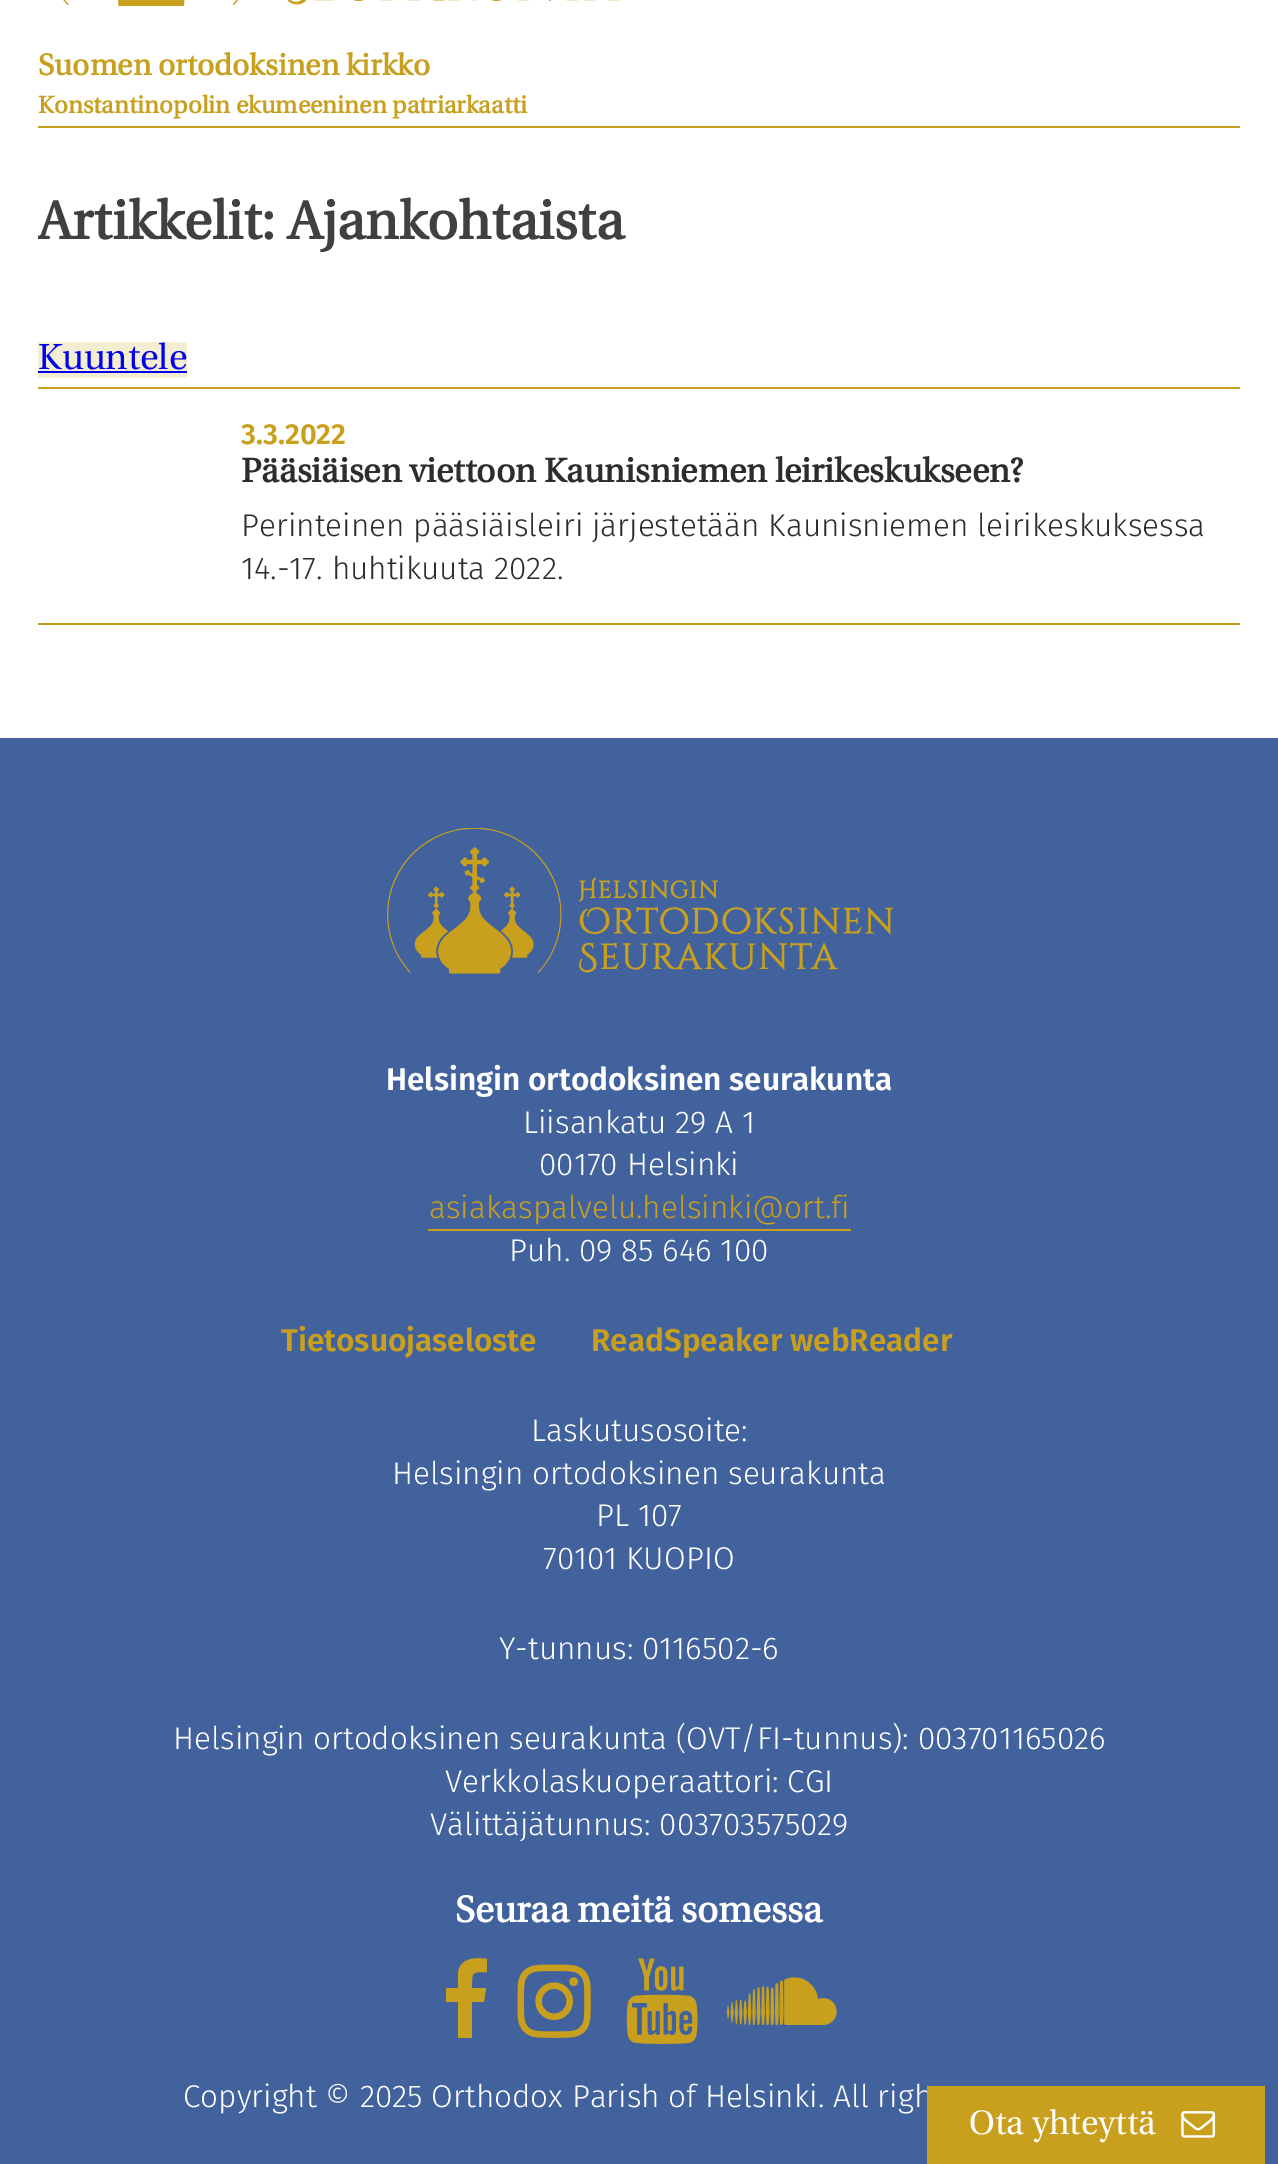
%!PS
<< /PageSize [1278 2164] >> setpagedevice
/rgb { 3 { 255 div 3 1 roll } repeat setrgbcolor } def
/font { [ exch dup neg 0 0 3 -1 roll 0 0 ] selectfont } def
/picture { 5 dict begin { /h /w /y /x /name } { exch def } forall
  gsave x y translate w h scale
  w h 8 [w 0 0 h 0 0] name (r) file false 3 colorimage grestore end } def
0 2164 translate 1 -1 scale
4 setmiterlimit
255 255 255 rgb
0 0 1278 2164 rectfill
200 160 30 rgb
38 126 1202 2 rectfill
(img/1.rgb) 63 0 557 6 picture
[
  [38 342 149 36 243 237 209]
  [38 371 149 2 0 0 238]
  [38 387 1202 2 200 160 30]
  [38 623 1202 2 200 160 30]
  [0 738 1278 1426 65 98 156]
] { aload pop rgb rectfill } forall
(img/2.rgb) 387 828 506 146 picture
200 160 30 rgb
428 1229 423 2 rectfill
487 1959 moveto 487 1972 lineto 471 1972 472 1972 472 1988 curveto 486 1988 lineto 484 2002 lineto 472 2002 lineto 472 2038 lineto 458 2038 lineto 458 2002 lineto 446 2002 lineto 446 1988 lineto 458 1988 lineto 458 1973 lineto 460 1958 475 1957 487 1959 curveto closepath fill
(img/3.rgb) 517 1964 74 74 picture
(img/4.rgb) 626 1958 72 86 picture
(img/5.rgb) 726 1977 111 48 picture
/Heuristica-Bold 29.9 font
38 75 moveto (Suomen ortodoksinen kirkko) show
/Heuristica-Bold 24.1 font
38 113 moveto (Konstantinopolin ekumeeninen patriarkaatti) show
gsave
38 185 1202 463 rectclip
/Heuristica-Bold 54 font
64 64 64 rgb
38 239 moveto (Artikkelit: Ajankohtaista) show
grestore
/Heuristica-Regular 36 font
0 0 238 rgb
38 369 moveto (Kuuntele) show
/FiraSans-SemiBold 29 font
200 160 30 rgb
241 444 moveto (3.3.2022) show
/Heuristica-Bold 33.75 font
45 45 45 rgb
241 482 moveto (Pääsiäisen viettoon Kaunisniemen leirikeskukseen?) show
/FiraSans-Light 31.5 font
241 536 moveto (Perinteinen pääsiäisleiri järjestetään Kaunisniemen leirikeskuksessa) show
241 579 moveto (14.-17. huhtikuuta 2022.) show
/FiraSans-SemiBold 31.5 font
255 255 255 rgb
386 1090 moveto (Helsingin ortodoksinen seurakunta) show
/FiraSans-Light 31.5 font
523 1133 moveto (Liisankatu 29 A 1) show
539 1175 moveto (00170 Helsinki) show
200 160 30 rgb
429 1218 moveto (asiakaspalvelu.helsinki@ort.fi) show
255 255 255 rgb
509 1261 moveto (Puh. 09 85 646 100) show
/FiraSans-SemiBold 31.5 font
200 160 30 rgb
281 1351 moveto (Tietosuojaseloste) show
591 1351 moveto (ReadSpeaker webReader) show
/FiraSans-Light 31.5 font
255 255 255 rgb
[
  [(Laskutusosoite:) 531 1441]
  [(Helsingin ortodoksinen seurakunta) 392 1484]
  [(PL 107) 596 1526]
  [(70101 KUOPIO) 543 1569]
  [(Y-tunnus: 0116502-6) 499 1659]
  [(Helsingin ortodoksinen seurakunta \(OVT/FI-tunnus\): 003701165026) 173 1749]
  [(Verkkolaskuoperaattori: CGI) 445 1792]
  [(Välittäjätunnus: 003703575029) 430 1835]
] { aload pop moveto show } forall
/Heuristica-Bold 36.75 font
455 1922 moveto (Seuraa meitä somessa) show
/FiraSans-Light 31.5 font
183 2107 moveto (Copyright © 2025 Orthodox Parish of Helsinki. All righ) show
200 160 30 rgb
927 2086 338 78 rectfill
/Heuristica-Regular 33.75 font
255 255 255 rgb
969 2134 moveto (Ota yhteyttä) show
(img/6.rgb) 1181 2111 34 27 picture
showpage
